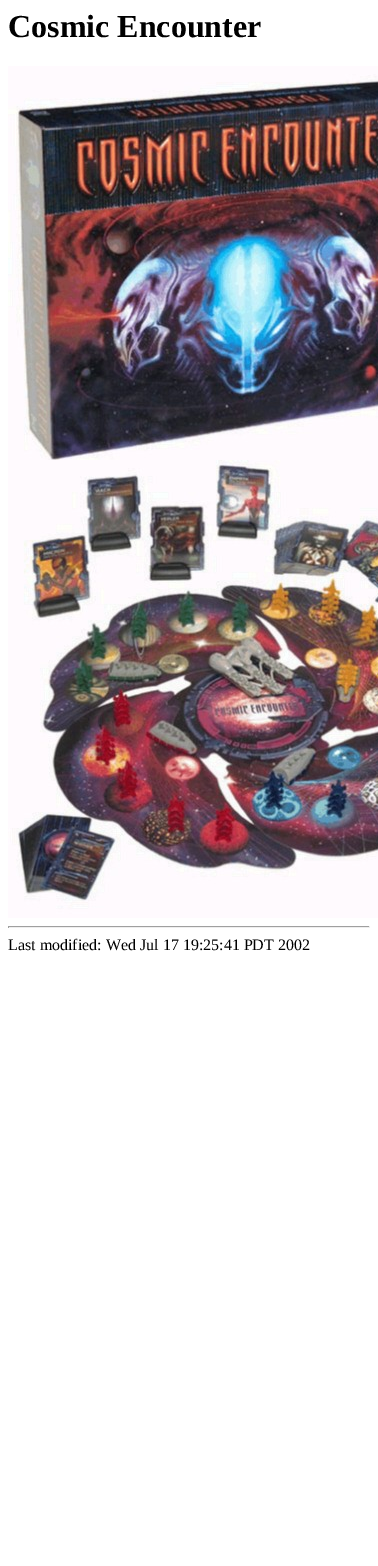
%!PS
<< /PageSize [378 1566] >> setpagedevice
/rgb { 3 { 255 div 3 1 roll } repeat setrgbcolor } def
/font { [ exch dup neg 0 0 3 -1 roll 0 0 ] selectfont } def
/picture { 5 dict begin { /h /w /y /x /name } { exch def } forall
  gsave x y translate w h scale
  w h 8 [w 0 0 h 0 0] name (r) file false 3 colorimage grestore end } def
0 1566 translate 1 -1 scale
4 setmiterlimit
255 255 255 rgb
0 0 378 1566 rectfill
(img/1.rgb) 8 66 370 394 picture
(img/2.rgb) 8 460 370 458 picture
[
  [8 926 362 1 159 159 159]
  [369 926 1 2 238 238 238]
  [8 927 362 1 238 238 238]
  [8 926 1 2 159 159 159]
] { aload pop rgb rectfill } forall
/LiberationSerif-Bold 32 font
0 0 0 rgb
8 37 moveto (Cosmic Encounter) show
/LiberationSerif-Regular 16 font
8 950 moveto (Last modified: Wed Jul 17 19:25:41 PDT 2002) show
showpage
